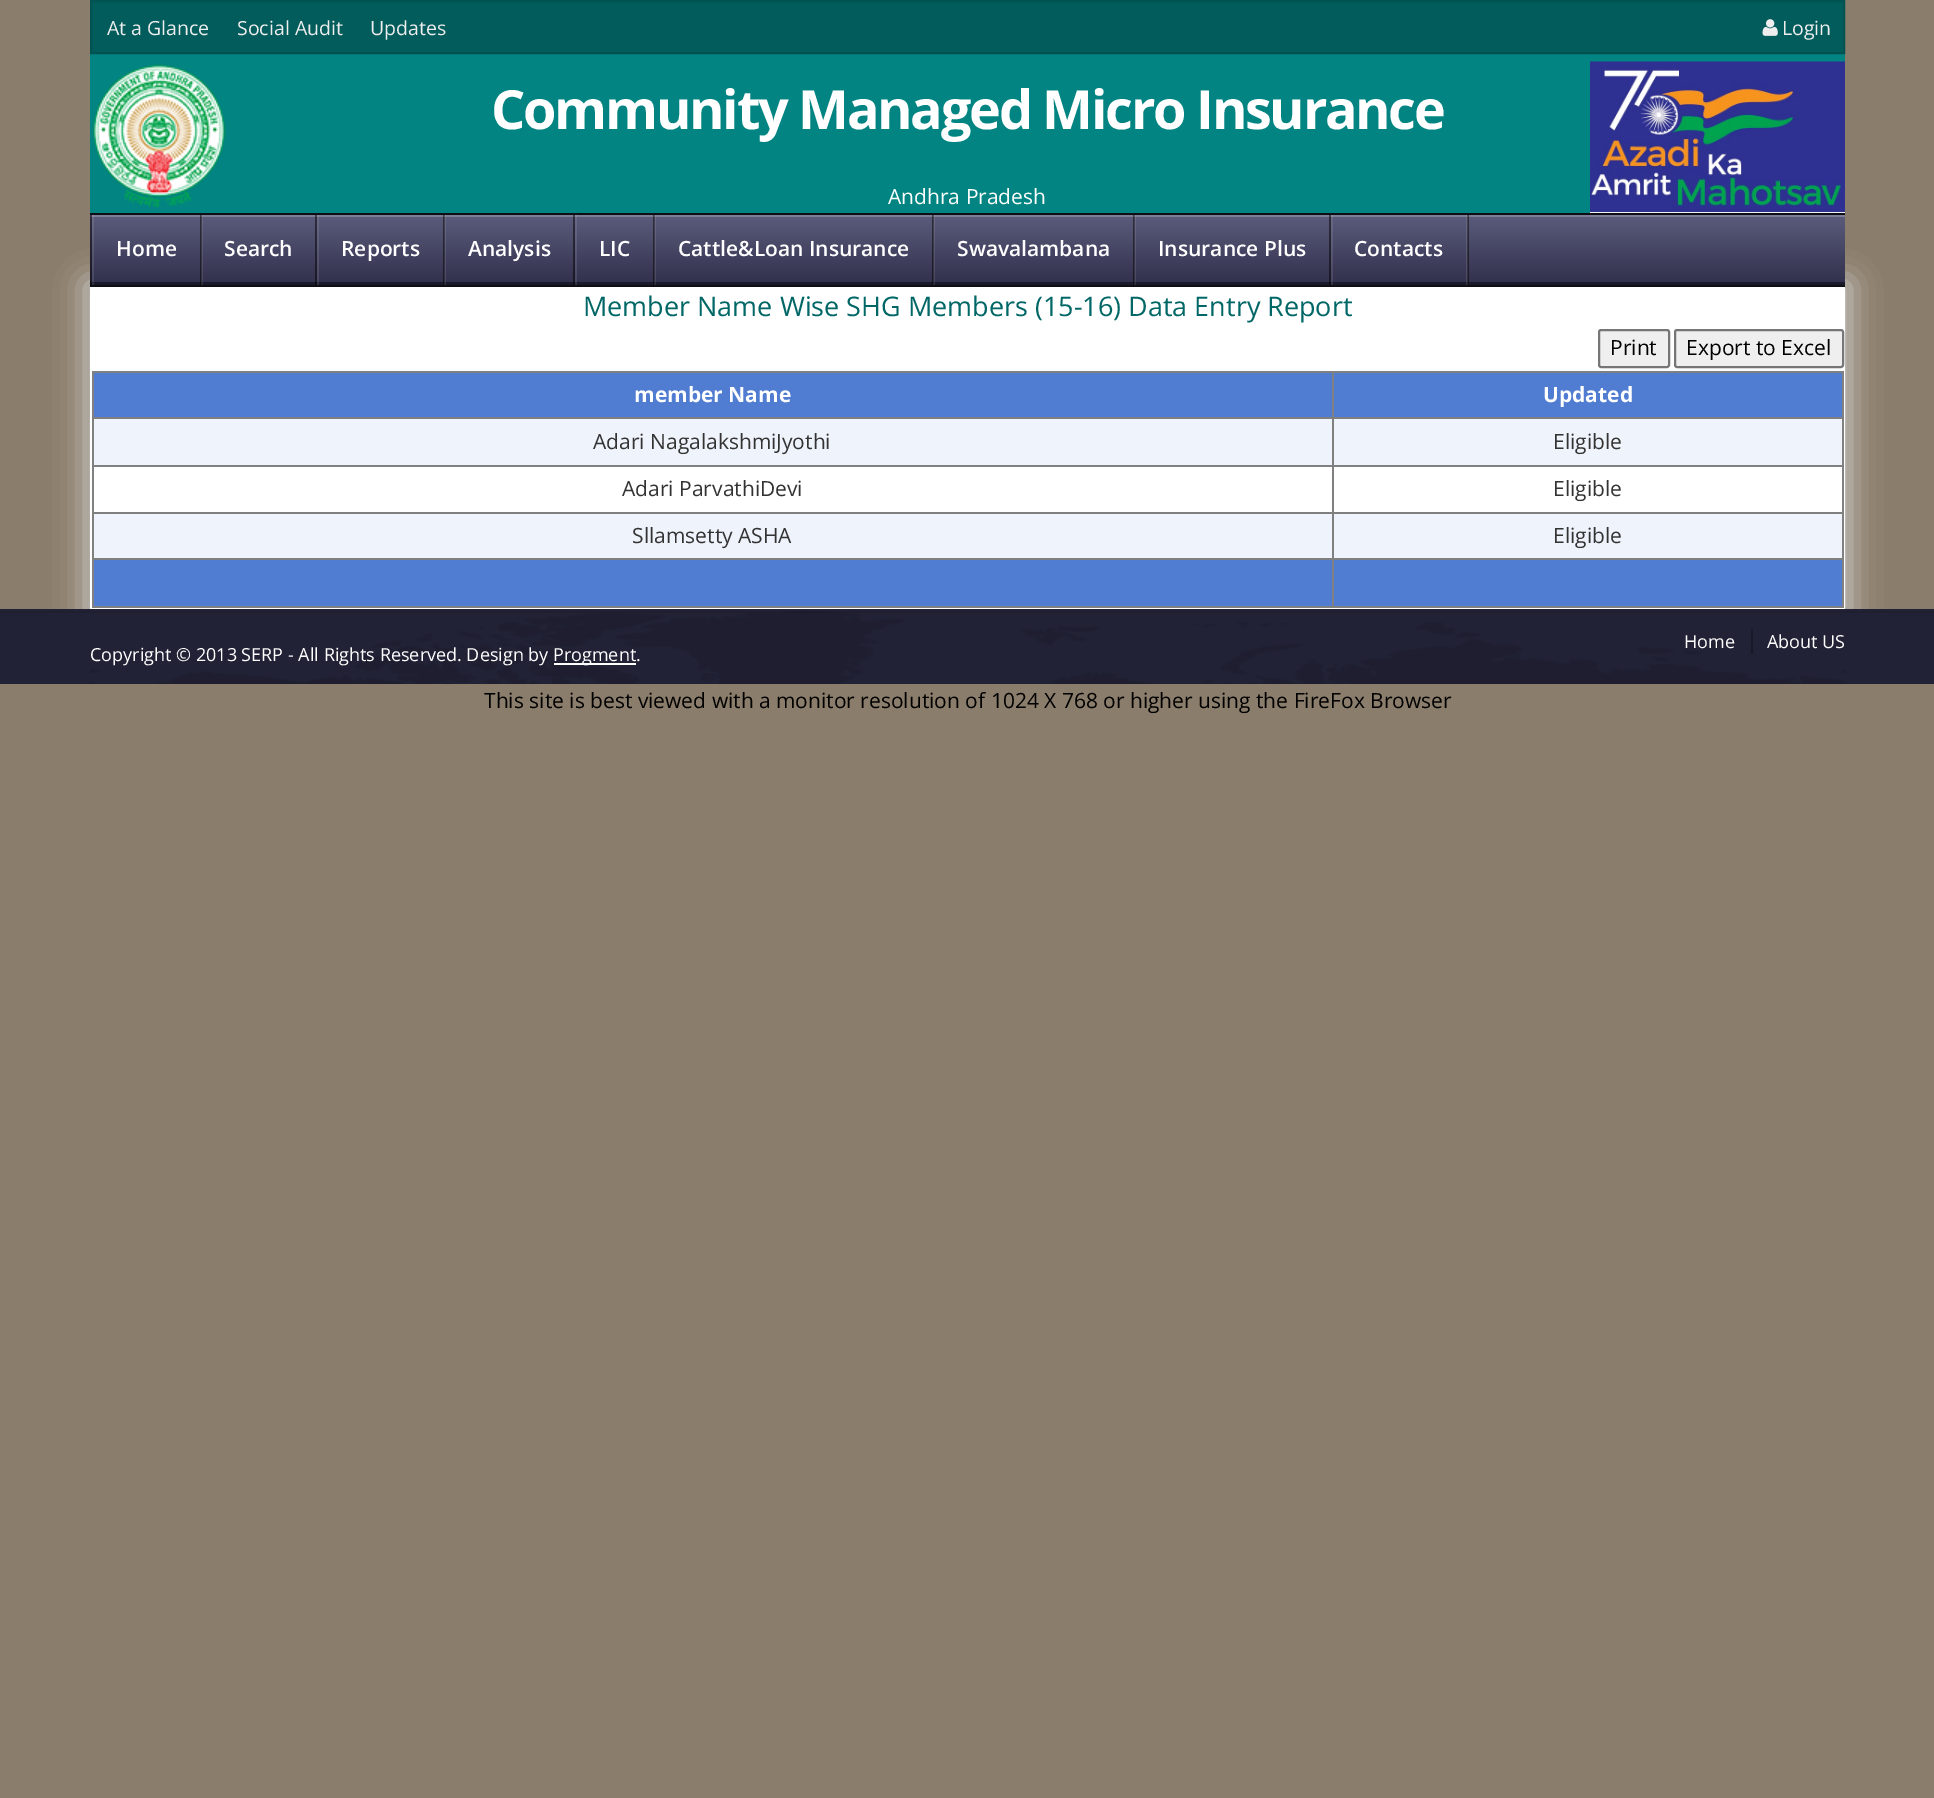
%!PS
<< /PageSize [1934 1798] /PageUsesTransparency true >> setpagedevice
/rgb { 3 { 255 div 3 1 roll } repeat setrgbcolor } def
/font { [ exch dup neg 0 0 3 -1 roll 0 0 ] selectfont } def
/alpha { dup .setfillconstantalpha .setstrokeconstantalpha } def
/roundrect { 5 dict begin { /r /h /w /y /x } { exch def } forall
  x r add y moveto x w add y 2 copy h add r arct x w add y h add x 1 index r arct
  x y h add x y r arct x y 2 copy exch w add exch r arct closepath end } def
/shadow { 12 dict begin { /a /b /q /h /w /y /x } { exch def } forall gsave /was 0 def
  9 -2 -9 { dup b mul 4 div /e exch def 1 sub .425 mul 2.718 exch exp 1 add a .99 .min exch div /now exch def
    1 1 now sub 1 was sub div sub alpha /was now def
    w h .min e 2 mul add 0 gt { x e sub y e sub w e 2 mul add h e 2 mul add
      q e add b .6 mul add w h .min 2 div e add .min 0 .max roundrect fill } if } for grestore end } def
/picture { 5 dict begin { /h /w /y /x /name } { exch def } forall
  gsave x y translate w h scale
  w h 8 [w 0 0 h 0 0] name (r) file false 3 colorimage grestore end } def
0 .pushpdf14devicefilter
0 1798 translate 1 -1 scale
4 setmiterlimit
139 125 107 rgb
0 0 1934 1798 rectfill
2 132 130 rgb
90 54 1755 159 rectfill
1 92 91 rgb
91 1 moveto 1844 1 lineto 1844 53 lineto 91 53 lineto closepath gsave fill grestore
1 83 82 rgb
2 setlinewidth
stroke
(img/1.rgb) 1762 19 16 17 picture
(img/2.rgb) 92 64 134 144 picture
(img/3.rgb) 1590 61 255 152 picture
255 255 255 rgb
90 287 1755 322 rectfill
gsave
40 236 moveto 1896 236 lineto 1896 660 lineto 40 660 lineto closepath 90 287 moveto 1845 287 lineto 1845 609 lineto 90 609 lineto closepath eoclip newpath
211 211 211 rgb
86 282 1764 332 0 15 1 shadow
grestore
gsave 90 217 moveto 1845 217 lineto 1845 282 lineto 90 282 lineto closepath clip newpath
<< /ShadingType 2 /ColorSpace /DeviceRGB /Coords [968 214 968 285] /Extend [true true] /Function << /FunctionType 2 /Domain [0 1] /C0 [0.361 0.361 0.486] /C1 [0.188 0.188 0.302] /N 1 >> >> shfill grestore
[
  [90 282 1755 3 26 26 43]
  [90 215 1755 2 125 125 150]
  [90 213 1755 2 14 14 23]
  [90 285 1755 2 14 14 23]
] { aload pop rgb rectfill } forall
0.5 alpha
[
  [200 215 2 70 0 0 0]
  [90 215 2 70 0 0 0]
] { aload pop rgb rectfill } forall
0.1 alpha
[
  [92 215 2 70 255 255 255]
] { aload pop rgb rectfill } forall
0.5 alpha
[
  [315 215 2 70 0 0 0]
] { aload pop rgb rectfill } forall
0.1 alpha
[
  [201 215 2 70 255 255 255]
] { aload pop rgb rectfill } forall
0.5 alpha
[
  [443 215 2 70 0 0 0]
] { aload pop rgb rectfill } forall
0.1 alpha
[
  [317 215 2 70 255 255 255]
] { aload pop rgb rectfill } forall
0.5 alpha
[
  [573 215 2 70 0 0 0]
] { aload pop rgb rectfill } forall
0.1 alpha
[
  [444 215 2 70 255 255 255]
] { aload pop rgb rectfill } forall
0.5 alpha
[
  [653 215 2 70 0 0 0]
] { aload pop rgb rectfill } forall
0.1 alpha
[
  [575 215 2 70 255 255 255]
] { aload pop rgb rectfill } forall
0.5 alpha
[
  [932 215 2 70 0 0 0]
] { aload pop rgb rectfill } forall
0.1 alpha
[
  [654 215 2 70 255 255 255]
] { aload pop rgb rectfill } forall
0.5 alpha
[
  [1133 215 2 70 0 0 0]
] { aload pop rgb rectfill } forall
0.1 alpha
[
  [933 215 2 70 255 255 255]
] { aload pop rgb rectfill } forall
0.5 alpha
[
  [1329 215 2 70 0 0 0]
] { aload pop rgb rectfill } forall
0.1 alpha
[
  [1134 215 2 70 255 255 255]
] { aload pop rgb rectfill } forall
0.5 alpha
[
  [1467 215 2 70 0 0 0]
] { aload pop rgb rectfill } forall
0.1 alpha
[
  [1466 215 2 70 255 255 255]
  [1331 215 2 70 255 255 255]
] { aload pop rgb rectfill } forall
1 alpha
239 239 239 rgb
1599 330 70 37 2 roundrect gsave fill grestore
118 118 118 rgb
stroke
239 239 239 rgb
1675 330 168 37 2 roundrect gsave fill grestore
118 118 118 rgb
stroke
[
  [92 371 1752 2 128 128 128]
  [1842 371 2 237 128 128 128]
  [92 606 1752 2 128 128 128]
  [92 371 2 237 128 128 128]
  [94 373 1748 44 80 124 209]
  [1332 417 512 2 128 128 128]
  [94 419 1748 46 239 243 251]
  [1332 465 512 2 128 128 128]
  [1332 512 512 2 128 128 128]
  [94 514 1748 44 239 243 251]
  [1332 558 512 2 128 128 128]
  [94 560 1748 46 80 124 209]
  [1332 558 2 50 128 128 128]
  [92 558 1242 2 128 128 128]
  [1332 512 2 48 128 128 128]
  [92 512 1242 2 128 128 128]
  [1332 465 2 48 128 128 128]
  [92 465 1242 2 128 128 128]
  [1332 417 2 50 128 128 128]
  [92 417 1242 2 128 128 128]
  [1332 371 2 48 128 128 128]
  [0 611 1934 73 48 48 77]
] { aload pop rgb rectfill } forall
(img/4.rgb) 90 611 1756 73 picture
[
  [0 609 1934 2 34 34 54]
] { aload pop rgb rectfill } forall
0.3 alpha
[
  [0 611 1934 73 0 0 0]
] { aload pop rgb rectfill } forall
0.1 alpha
[
  [0 611 1934 2 0 0 0]
] { aload pop rgb rectfill } forall
1 alpha
[
  [1751 629 2 25 24 24 38]
  [554 663 82 2 255 255 255]
] { aload pop rgb rectfill } forall
/OpenSans-Regular 19.5 font
238 238 238 rgb
[
  [(At a Glance) 107 35]
  [(Social Audit) 237 35]
  [(Updates) 370 35]
  [(Login) 1782 35]
] { aload pop moveto show } forall
/OpenSans-Bold 54 font
255 255 255 rgb
491 129 moveto -2.25 0 (Community Managed Micro Insurance) ashow
/OpenSans-Regular 21 font
888 204 moveto (Andhra Pradesh) show
/OpenSans-SemiBold 21 font
[
  [(Home) 116 256]
  [(Search) 224 256]
  [(Reports) 341 256]
  [(Analysis) 468 256]
  [(LIC) 599 256]
  [(Cattle&Loan Insurance) 678 256]
  [(Swavalambana) 957 256]
  [(Insurance Plus) 1158 256]
  [(Contacts) 1354 256]
] { aload pop moveto show } forall
/OpenSans-Regular 27 font
0 102 102 rgb
583 316 moveto (Member Name Wise SHG Members \(15-16\) Data Entry Report) show
/OpenSans-Regular 21 font
0 0 0 rgb
1610 355 moveto (Print) show
1686 355 moveto (Export to Excel) show
/OpenSans-Bold 21 font
255 255 255 rgb
634 402 moveto (member Name) show
1543 402 moveto (Updated) show
/OpenSans-Regular 21 font
51 51 51 rgb
[
  [(Adari NagalakshmiJyothi) 593 449]
  [(Eligible) 1553 449]
  [(Adari ParvathiDevi) 622 496]
  [(Eligible) 1553 496]
  [(Sllamsetty ASHA) 632 543]
  [(Eligible) 1553 543]
] { aload pop moveto show } forall
/OpenSans-Regular 18 font
255 255 255 rgb
[
  [(Home) 1684 648]
  [(About US) 1767 648]
  [(Copyright © 2013 SERP - All Rights Reserved. Design by) 90 661]
  [(Progment.) 553 661]
] { aload pop moveto show } forall
/OpenSans-Regular 21 font
0 0 0 rgb
484 708 moveto (This site is best viewed with a monitor resolution of 1024 X 768 or higher using the FireFox Browser) show
.poppdf14devicefilter showpage
